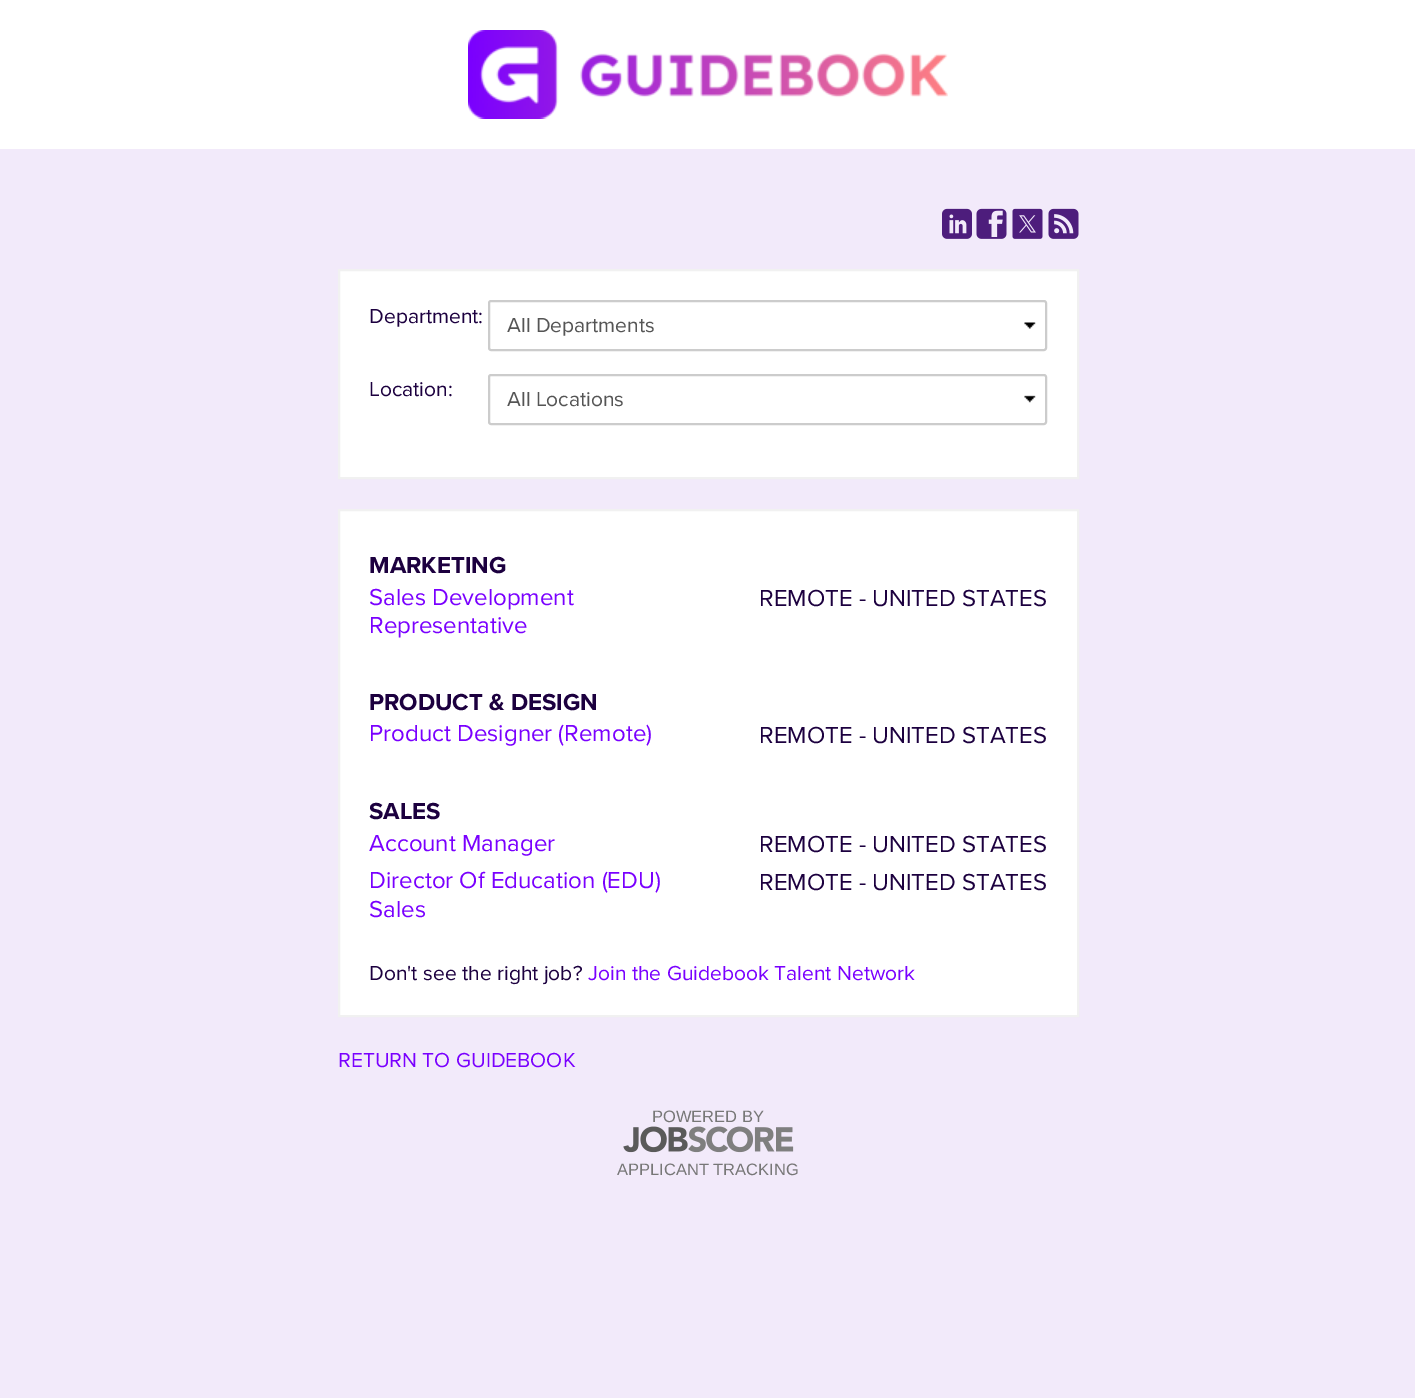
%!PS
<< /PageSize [1415 1398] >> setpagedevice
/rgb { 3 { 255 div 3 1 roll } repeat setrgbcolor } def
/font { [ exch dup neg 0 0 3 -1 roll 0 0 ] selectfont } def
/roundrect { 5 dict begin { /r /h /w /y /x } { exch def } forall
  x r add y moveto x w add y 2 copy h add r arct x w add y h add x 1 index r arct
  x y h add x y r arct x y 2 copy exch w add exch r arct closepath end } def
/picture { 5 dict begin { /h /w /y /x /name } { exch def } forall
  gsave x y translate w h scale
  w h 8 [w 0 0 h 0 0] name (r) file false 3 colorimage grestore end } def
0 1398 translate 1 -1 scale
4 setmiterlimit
242 234 250 rgb
0 0 1415 1398 rectfill
255 255 255 rgb
0 0 1415 149 rectfill
(img/1.rgb) 468 30 480 89 picture
(img/2.rgb) 942 208 30 31 picture
(img/3.rgb) 976 208 31 31 picture
(img/4.rgb) 1012 208 31 31 picture
(img/5.rgb) 1048 208 31 31 picture
339 270 moveto 1078 270 lineto 1078 478 lineto 339 478 lineto closepath gsave fill grestore
241 241 241 rgb
2 setlinewidth
stroke
(img/6.rgb) 1024 322 12 7 picture
204 204 204 rgb
489 301 557 49 2 roundrect stroke
(img/7.rgb) 1024 395 12 8 picture
489 375 557 49 2 roundrect stroke
255 255 255 rgb
339 510 moveto 1078 510 lineto 1078 1016 lineto 339 1016 lineto closepath gsave fill grestore
241 241 241 rgb
stroke
(img/8.rgb) 623 1126 65 27 picture
(img/9.rgb) 688 1126 106 27 picture
/ProximaNova-Regular 21 font
28 0 63 rgb
369 323 moveto (Department:) show
85 85 85 rgb
507 332 moveto (All Departments) show
28 0 63 rgb
369 396 moveto (Location:) show
85 85 85 rgb
507 406 moveto (All Locations) show
/ProximaNova-Bold 24 font
28 0 63 rgb
369 573 moveto (MARKETING) show
/ProximaNova-Regular 24 font
122 0 255 rgb
369 605 moveto (Sales Development) show
369 633 moveto (Representative) show
28 0 63 rgb
759 606 moveto (REMOTE - UNITED STATES) show
/ProximaNova-Bold 24 font
369 710 moveto (PRODUCT & DESIGN) show
/ProximaNova-Regular 24 font
122 0 255 rgb
369 741 moveto (Product Designer \(Remote\)) show
28 0 63 rgb
759 743 moveto (REMOTE - UNITED STATES) show
/ProximaNova-Bold 24 font
369 819 moveto (SALES) show
/ProximaNova-Regular 24 font
122 0 255 rgb
369 851 moveto (Account Manager) show
28 0 63 rgb
759 852 moveto (REMOTE - UNITED STATES) show
122 0 255 rgb
369 888 moveto (Director Of Education \(EDU\)) show
369 917 moveto (Sales) show
28 0 63 rgb
759 890 moveto (REMOTE - UNITED STATES) show
/ProximaNova-Regular 21 font
369 980 moveto (Don't see the right job?) show
122 0 255 rgb
588 980 moveto (Join the Guidebook Talent Network) show
338 1067 moveto (RETURN TO GUIDEBOOK) show
/LiberationSans-Regular 16.5 font
119 119 119 rgb
652 1122 moveto (POWERED BY) show
617 1175 moveto (APPLICANT TRACKING) show
showpage
